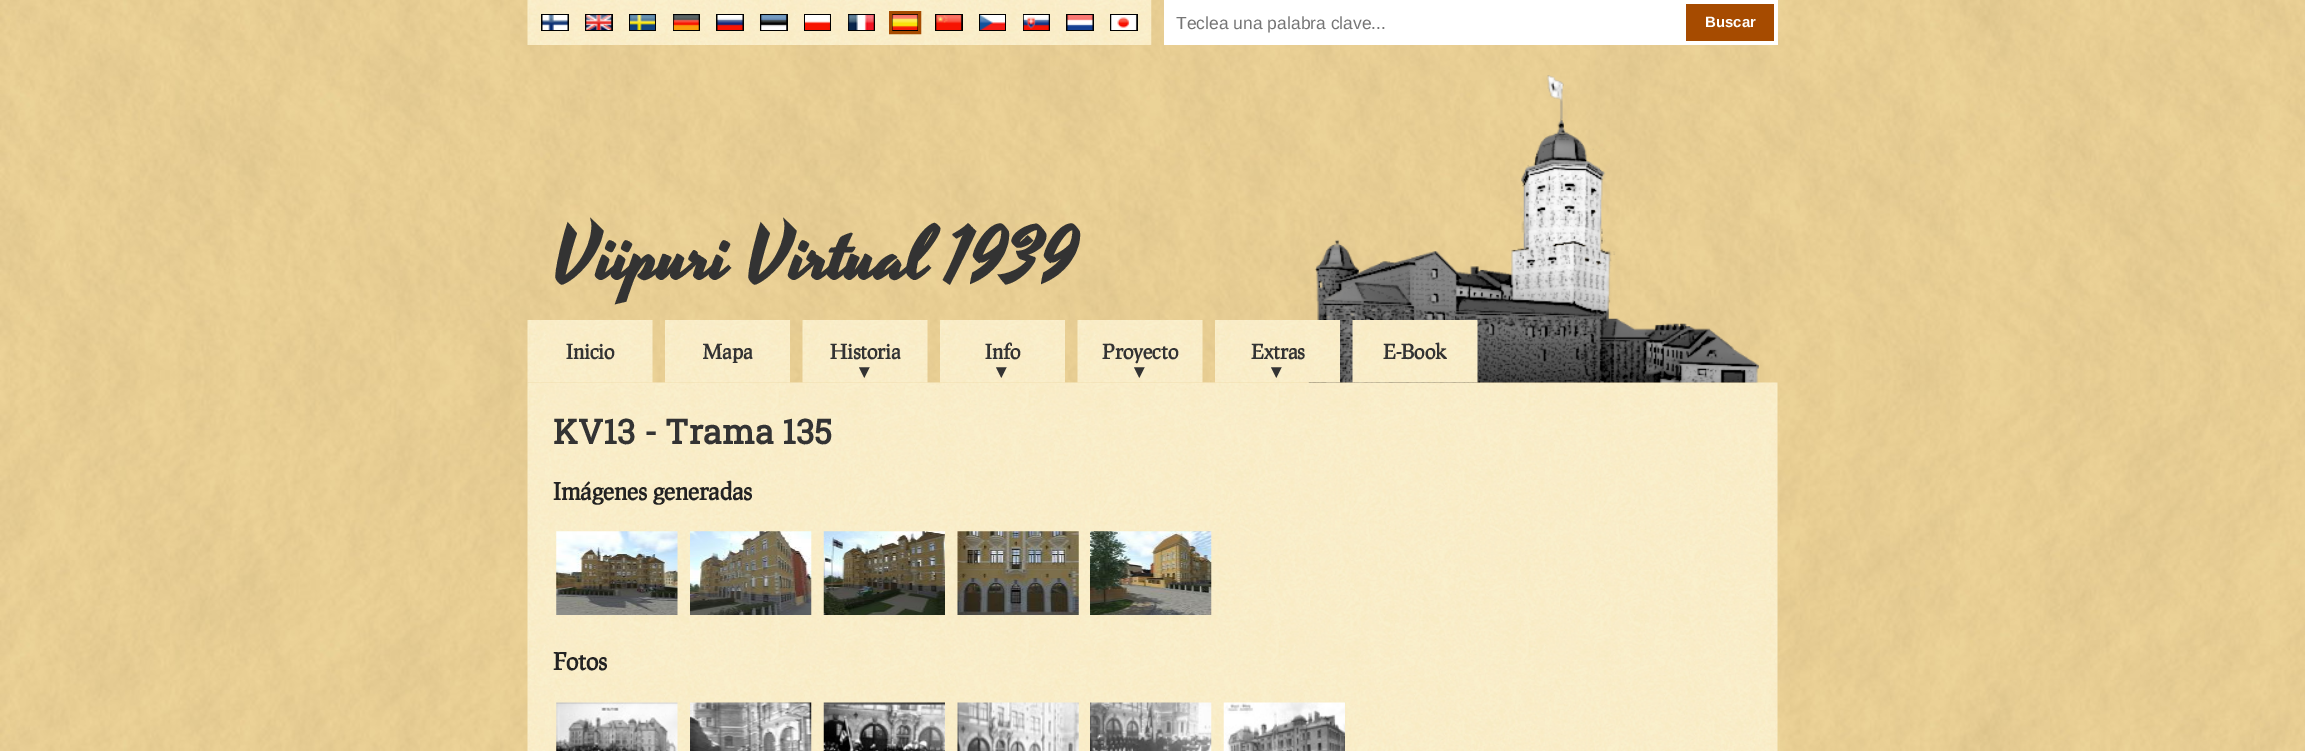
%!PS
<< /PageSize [2305 751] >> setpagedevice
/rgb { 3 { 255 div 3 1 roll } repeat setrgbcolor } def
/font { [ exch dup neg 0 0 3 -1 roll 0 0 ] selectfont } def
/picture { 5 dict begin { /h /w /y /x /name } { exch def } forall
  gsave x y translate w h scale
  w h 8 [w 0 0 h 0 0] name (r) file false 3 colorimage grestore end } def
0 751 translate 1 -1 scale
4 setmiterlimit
255 255 255 rgb
0 0 2305 751 rectfill
(img/1.rgb) 0 0 2305 751 picture
(img/2.rgb) 527 0 625 45 picture
0 0 0 rgb
541 14 28 17 rectfill
(img/3.rgb) 542 15 26 15 picture
585 14 28 17 rectfill
(img/4.rgb) 586 15 26 15 picture
629 14 27 17 rectfill
(img/5.rgb) 630 15 25 15 picture
673 14 27 17 rectfill
(img/6.rgb) 673 15 26 15 picture
716 14 28 17 rectfill
(img/7.rgb) 717 15 26 15 picture
760 14 28 17 rectfill
(img/8.rgb) 761 15 26 15 picture
804 14 27 17 rectfill
(img/9.rgb) 805 15 25 15 picture
848 14 27 17 rectfill
(img/10.rgb) 848 15 26 15 picture
890.5 12.5 moveto 919.5 12.5 lineto 919.5 32.5 lineto 890.5 32.5 lineto closepath gsave fill grestore
166 75 0 rgb
3 setlinewidth
stroke
(img/11.rgb) 892 15 26 15 picture
0 0 0 rgb
935 14 28 17 rectfill
(img/12.rgb) 936 15 26 15 picture
979 14 27 17 rectfill
(img/13.rgb) 980 15 25 15 picture
1023 14 27 17 rectfill
(img/14.rgb) 1023 15 26 15 picture
1066 14 28 17 rectfill
(img/15.rgb) 1067 15 26 15 picture
1110 14 28 17 rectfill
(img/16.rgb) 1111 15 26 15 picture
255 255 255 rgb
1164 0 614 45 rectfill
166 75 0 rgb
1686 4 88 37 rectfill
(img/25.rgb) 527 382 1251 369 picture
(img/17.rgb) 1308 75 451 308 picture
(img/18.rgb) 527 320 126 63 picture
(img/19.rgb) 665 320 125 63 picture
(img/20.rgb) 802 320 126 63 picture
(img/21.rgb) 940 320 125 63 picture
(img/22.rgb) 1077 320 126 63 picture
(img/23.rgb) 1215 320 125 63 picture
(img/24.rgb) 1352 320 126 63 picture
(img/26.rgb) 556 531 122 84 picture
(img/27.rgb) 690 531 122 84 picture
(img/28.rgb) 823 531 122 84 picture
(img/29.rgb) 957 531 122 84 picture
(img/30.rgb) 1090 531 122 84 picture
(img/31.rgb) 556 702 122 49 picture
(img/32.rgb) 690 702 122 49 picture
(img/33.rgb) 823 702 122 49 picture
(img/34.rgb) 957 702 122 49 picture
(img/35.rgb) 1090 702 122 49 picture
(img/36.rgb) 1223 702 122 49 picture
/LiberationSans-Regular 17.5 font
117 117 117 rgb
1176 29 moveto (Teclea una palabra clave...) show
/LiberationSans-Bold 15 font
255 255 255 rgb
1705 27 moveto (Buscar) show
/Yesteryear-Bold 75 font
51 51 51 rgb
553 278 moveto (Viipuri Virtual 1939) show
/Prociono-Bold 20 font
[
  [(Inicio) 566 359]
  [(Mapa) 703 359]
  [(Historia) 830 359]
] { aload pop moveto show } forall
/DejaVuSans-Bold 20 font
859 378 moveto (▾) show
/Prociono-Bold 20 font
985 359 moveto (Info) show
/DejaVuSans-Bold 20 font
996 378 moveto (▾) show
/Prociono-Bold 20 font
1102 359 moveto (Proyecto) show
/DejaVuSans-Bold 20 font
1134 378 moveto (▾) show
/Prociono-Bold 20 font
1251 359 moveto (Extras) show
/DejaVuSans-Bold 20 font
1271 378 moveto (▾) show
/Prociono-Bold 20 font
1383 359 moveto (E-Book) show
/RobotoSlab-Bold 34 font
553 444 moveto (KV13 - Trama 135) show
/Prociono-Bold 23.5 font
34 34 34 rgb
553 500 moveto (Imágenes generadas) show
553 670 moveto (Fotos) show
showpage
